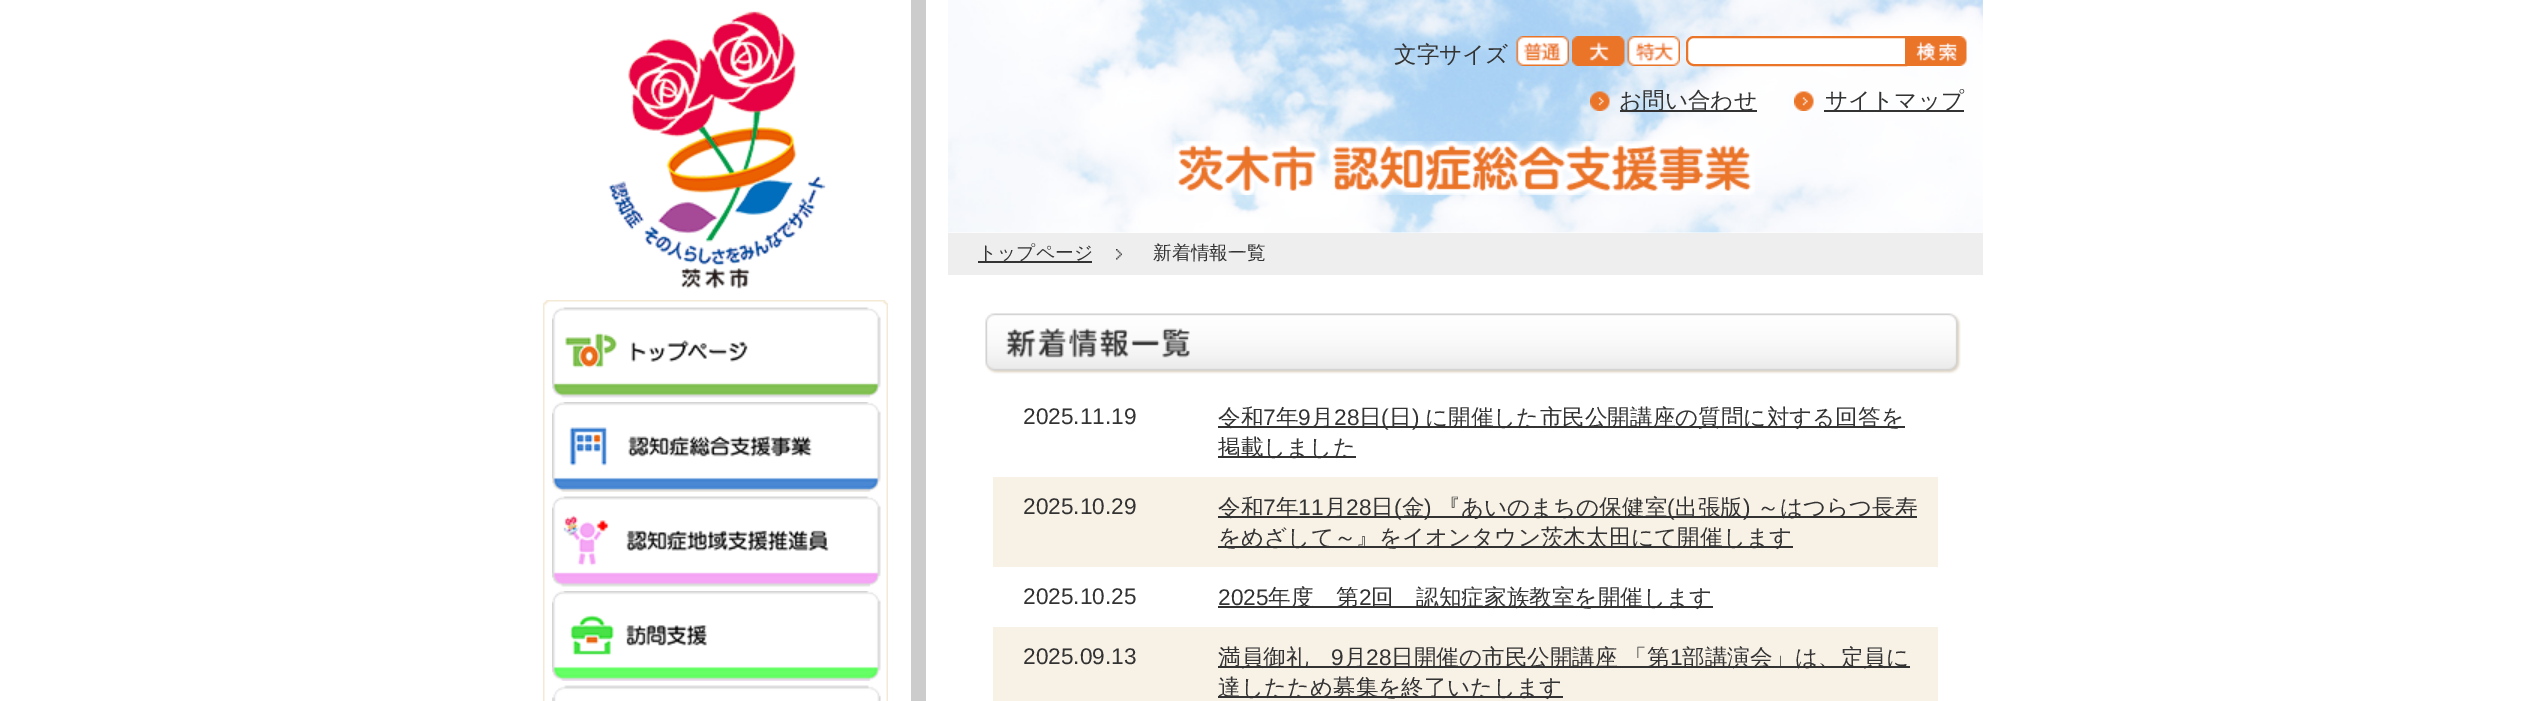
%!PS
<< /PageSize [2525 701] >> setpagedevice
/rgb { 3 { 255 div 3 1 roll } repeat setrgbcolor } def
/font { [ exch dup neg 0 0 3 -1 roll 0 0 ] selectfont } def
/picture { 5 dict begin { /h /w /y /x /name } { exch def } forall
  gsave x y translate w h scale
  w h 8 [w 0 0 h 0 0] name (r) file false 3 colorimage grestore end } def
0 701 translate 1 -1 scale
4 setmiterlimit
255 255 255 rgb
0 0 2525 701 rectfill
(img/1.rgb) 608 11 218 278 picture
(img/2.rgb) 543 300 345 401 picture
(img/3.rgb) 552 307 329 91 picture
(img/4.rgb) 552 402 329 90 picture
(img/5.rgb) 552 496 329 91 picture
(img/6.rgb) 552 591 329 90 picture
(img/7.rgb) 552 685 329 16 picture
204 204 204 rgb
911 0 15 701 rectfill
(img/8.rgb) 948 0 1035 233 picture
(img/9.rgb) 1516 36 53 30 picture
(img/10.rgb) 1572 36 53 30 picture
(img/11.rgb) 1627 36 53 30 picture
255 255 255 rgb
1694 37 moveto 1906 37 lineto 1906 65 lineto 1694 65 lineto 1690 65 1687 62 1687 58 curveto 1687 44 lineto 1687 40 1690 37 1694 37 curveto closepath gsave fill grestore
234 116 39 rgb
2 setlinewidth
stroke
(img/12.rgb) 1907 36 60 30 picture
(img/13.rgb) 1590 91 20 20 picture
51 51 51 rgb
1620 110 137 2 rectfill
(img/14.rgb) 1794 91 20 20 picture
1824 110 140 2 rectfill
(img/15.rgb) 1174 141 581 54 picture
238 238 238 rgb
948 233 1035 42 rectfill
(img/16.rgb) 1116 249 6 11 picture
51 51 51 rgb
978 261 114 2 rectfill
(img/17.rgb) 985 313 976 61 picture
[
  [1218 426 687 2 51 51 51]
  [1218 456 138 2 51 51 51]
  [993 477 945 90 248 241 230]
  [1218 516 699 2 51 51 51]
  [1218 546 575 2 51 51 51]
  [1218 606 495 2 51 51 51]
  [993 627 945 74 248 241 230]
  [1218 666 692 2 51 51 51]
  [1218 696 345 2 51 51 51]
] { aload pop rgb rectfill } forall
/WenQuanYiZenHei-Medium 22.6 font
[
  [(文字サイズ) 1394 62]
  [(お問い合わせ) 1619 108]
  [(サイトマップ) 1825 108]
] { aload pop moveto show } forall
/WenQuanYiZenHei-Medium 18.75 font
978 259 moveto (トップページ) show
1153 259 moveto (新着情報一覧) show
/LiberationSans-Regular 22.6 font
1023 424 moveto (2025.11.19) show
/WenQuanYiZenHei-Medium 22.6 font
1218 425 moveto (令和) show
/LiberationSans-Regular 22.6 font
1263 425 moveto (7) show
/WenQuanYiZenHei-Medium 22.6 font
1276 425 moveto (年) show
/LiberationSans-Regular 22.6 font
1298 425 moveto (9) show
/WenQuanYiZenHei-Medium 22.6 font
1311 425 moveto (月) show
/LiberationSans-Regular 22.6 font
1334 425 moveto (28) show
/WenQuanYiZenHei-Medium 22.6 font
1359 425 moveto (日) show
/LiberationSans-Regular 22.6 font
1381 425 moveto (\() show
/WenQuanYiZenHei-Medium 22.6 font
1389 425 moveto (日) show
/LiberationSans-Regular 22.6 font
1412 425 moveto (\)) show
/WenQuanYiZenHei-Medium 22.6 font
1425 425 moveto (に開催した市民公開講座の質問に対する回答を) show
1218 455 moveto (掲載しました) show
/LiberationSans-Regular 22.6 font
1023 514 moveto (2025.10.29) show
/WenQuanYiZenHei-Medium 22.6 font
1218 515 moveto (令和) show
/LiberationSans-Regular 22.6 font
1263 515 moveto (7) show
/WenQuanYiZenHei-Medium 22.6 font
1276 515 moveto (年) show
/LiberationSans-Regular 22.6 font
1298 515 moveto (11) show
/WenQuanYiZenHei-Medium 22.6 font
1324 515 moveto (月) show
/LiberationSans-Regular 22.6 font
1346 515 moveto (28) show
/WenQuanYiZenHei-Medium 22.6 font
1371 515 moveto (日) show
/LiberationSans-Regular 22.6 font
1394 515 moveto (\() show
/WenQuanYiZenHei-Medium 22.6 font
1402 515 moveto (金) show
/LiberationSans-Regular 22.6 font
1424 515 moveto (\)) show
/WenQuanYiZenHei-Medium 22.6 font
1438 515 moveto (『あいのまちの保健室) show
/LiberationSans-Regular 22.6 font
1667 515 moveto (\() show
/WenQuanYiZenHei-Medium 22.6 font
1675 515 moveto (出張版) show
/LiberationSans-Regular 22.6 font
1743 515 moveto (\)) show
/WenQuanYiZenHei-Medium 22.6 font
1757 515 moveto (～はつらつ長寿) show
1218 545 moveto (をめざして～』をイオンタウン茨木太田にて開催します) show
/LiberationSans-Regular 22.6 font
1023 604 moveto (2025.10.25) show
1218 605 moveto (2025) show
/WenQuanYiZenHei-Medium 22.6 font
1268 605 moveto (年度　第) show
/LiberationSans-Regular 22.6 font
1359 605 moveto (2) show
/WenQuanYiZenHei-Medium 22.6 font
1371 605 moveto (回　認知症家族教室を開催します) show
/LiberationSans-Regular 22.6 font
1023 664 moveto (2025.09.13) show
/WenQuanYiZenHei-Medium 22.6 font
1218 665 moveto (満員御礼) show
/LiberationSans-Regular 22.6 font
1331 665 moveto (9) show
/WenQuanYiZenHei-Medium 22.6 font
1344 665 moveto (月) show
/LiberationSans-Regular 22.6 font
1366 665 moveto (28) show
/WenQuanYiZenHei-Medium 22.6 font
1391 665 moveto (日開催の市民公開講座 「第) show
/LiberationSans-Regular 22.6 font
1670 665 moveto (1) show
/WenQuanYiZenHei-Medium 22.6 font
1682 665 moveto (部講演会」は、定員に) show
1218 695 moveto (達したため募集を終了いたします) show
showpage
